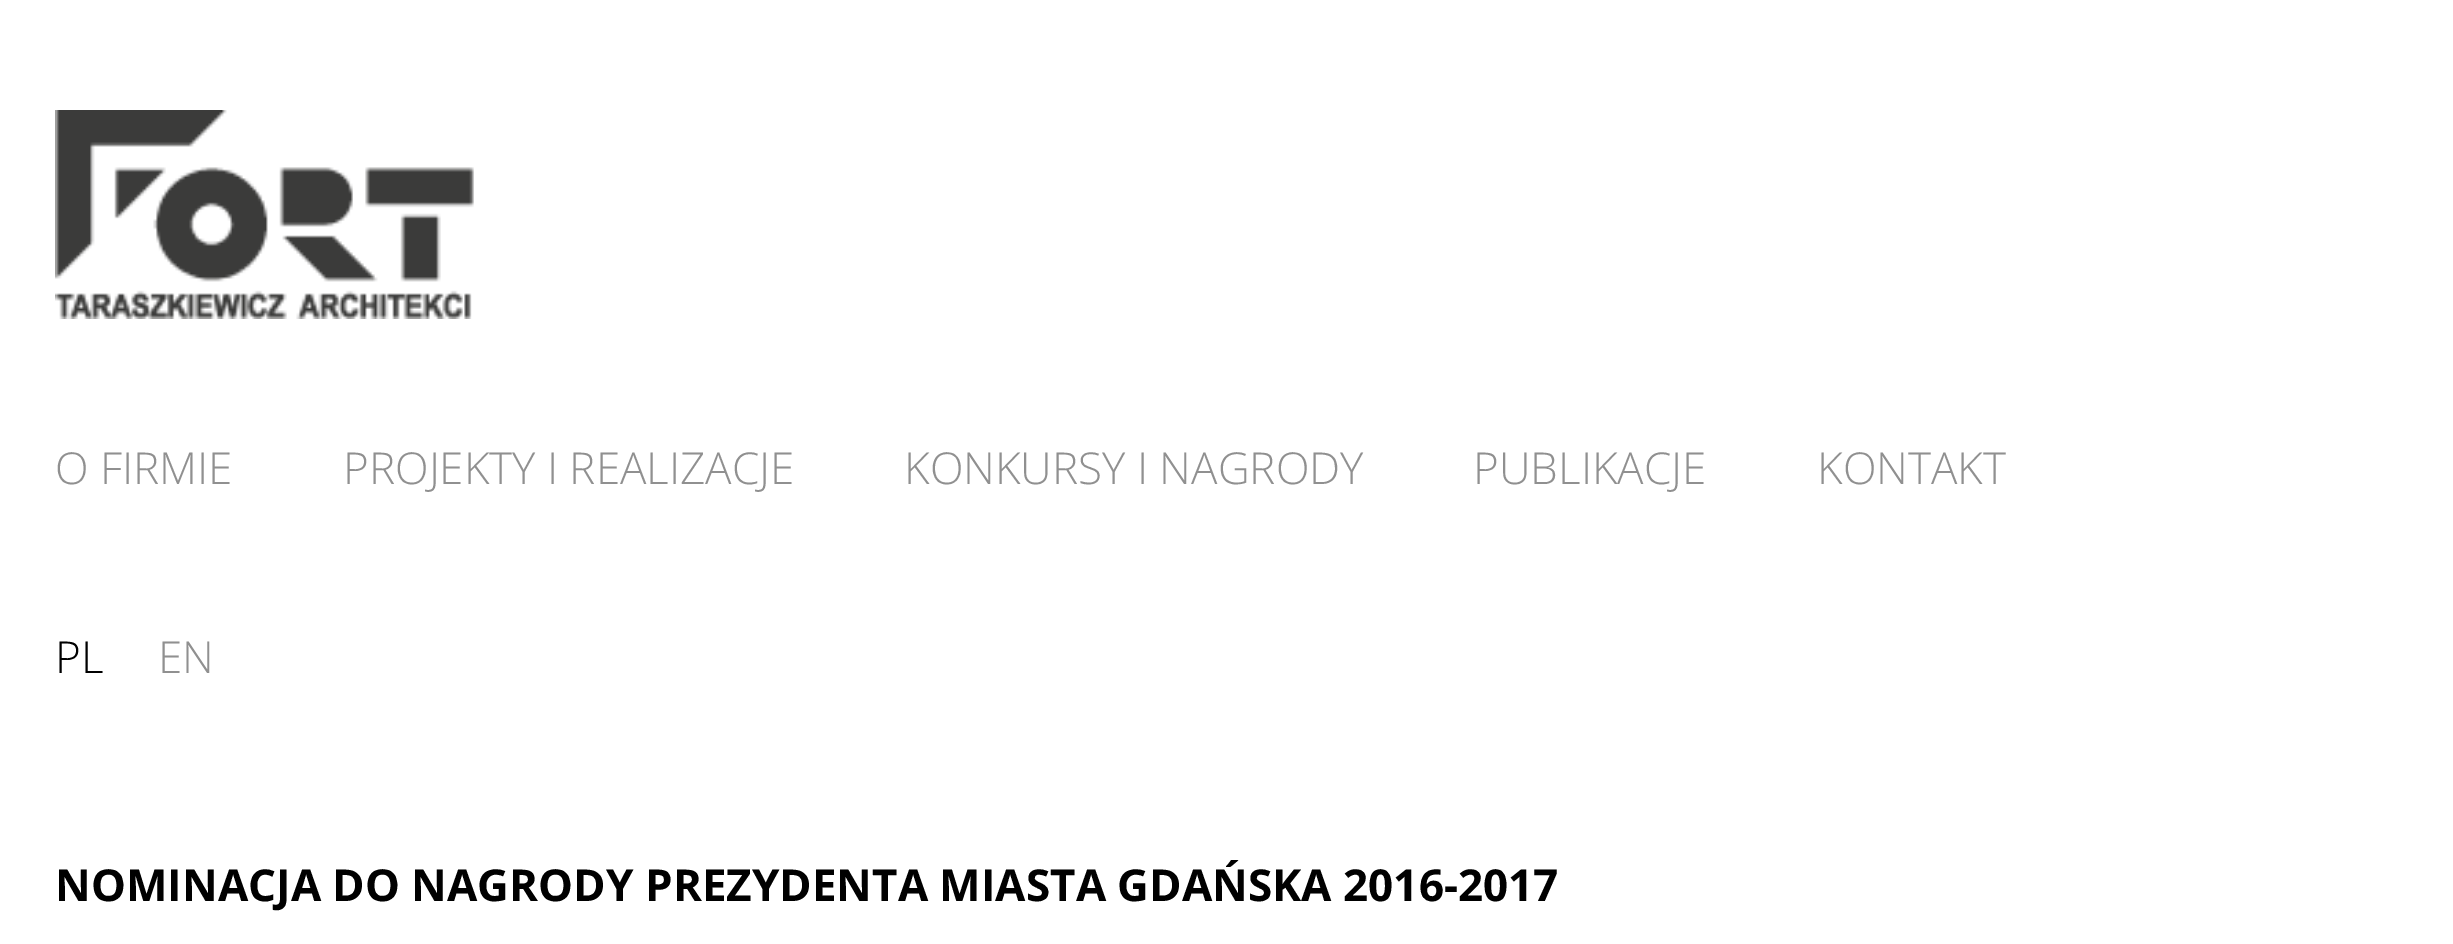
%!PS
<< /PageSize [2453 944] >> setpagedevice
/rgb { 3 { 255 div 3 1 roll } repeat setrgbcolor } def
/font { [ exch dup neg 0 0 3 -1 roll 0 0 ] selectfont } def
/picture { 5 dict begin { /h /w /y /x /name } { exch def } forall
  gsave x y translate w h scale
  w h 8 [w 0 0 h 0 0] name (r) file false 3 colorimage grestore end } def
0 944 translate 1 -1 scale
4 setmiterlimit
255 255 255 rgb
0 0 2453 944 rectfill
(img/1.rgb) 55 110 419 209 picture
/OpenSans-Light 44 font
144 144 144 rgb
[
  [(O FIRMIE) 55 484]
  [(PROJEKTY I REALIZACJE) 343 484]
  [(KONKURSY I NAGRODY) 904 484]
  [(PUBLIKACJE) 1473 484]
  [(KONTAKT) 1817 484]
] { aload pop moveto show } forall
0 0 0 rgb
55 673 moveto (PL) show
144 144 144 rgb
158 673 moveto (EN) show
/OpenSans-Bold 44 font
0 0 0 rgb
55 901 moveto (NOMINACJA DO NAGRODY PREZYDENTA MIASTA GDAŃSKA 2016-2017) show
showpage
